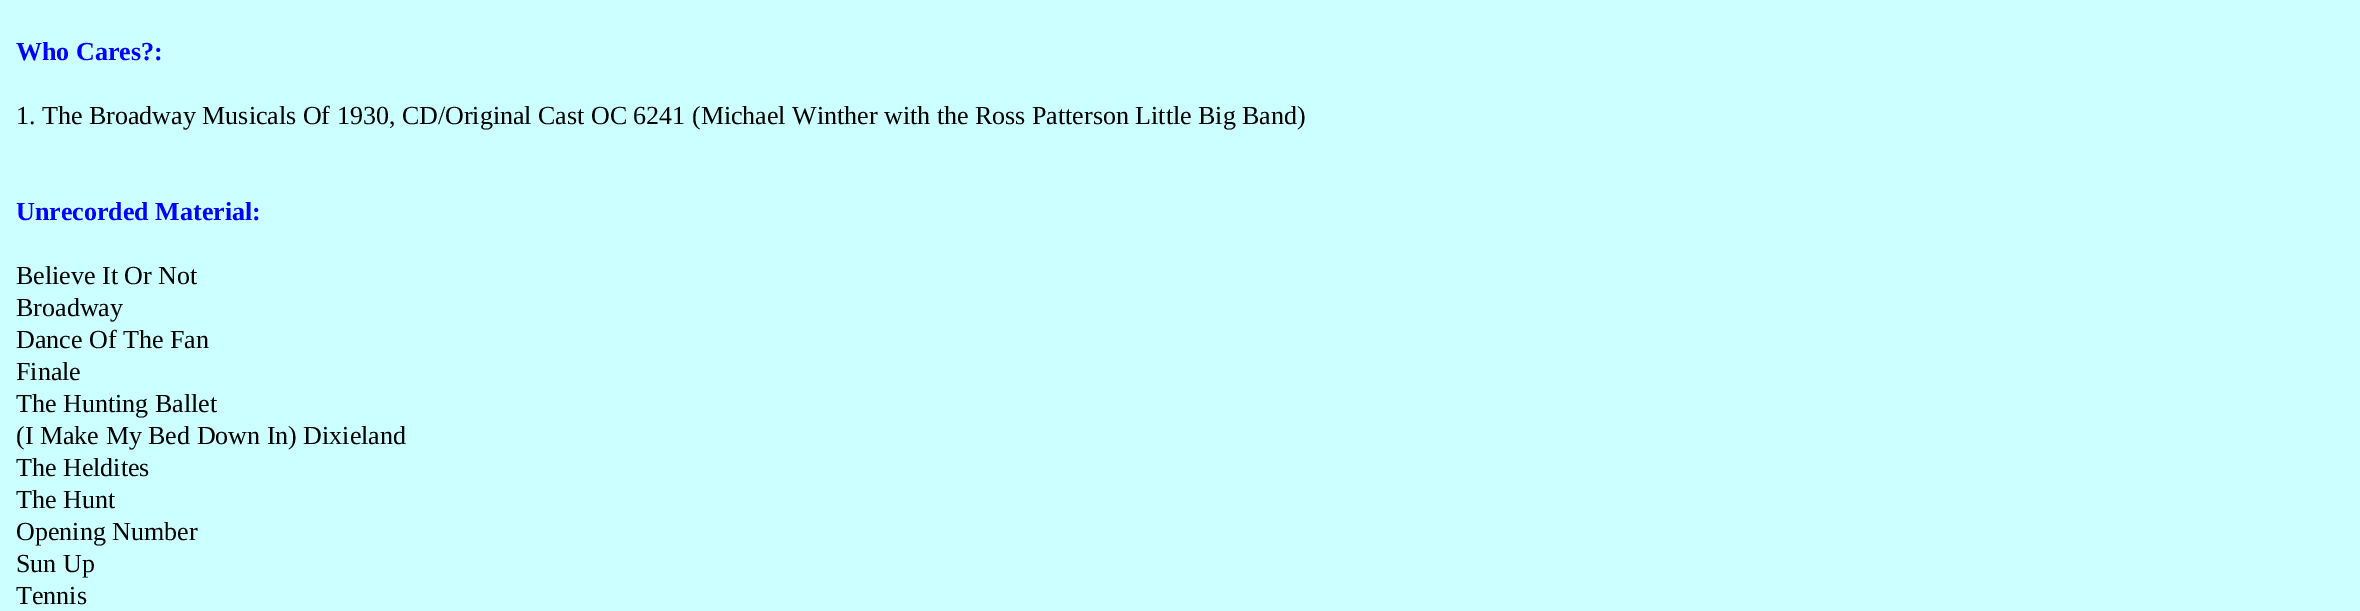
%!PS
<< /PageSize [2360 611] >> setpagedevice
/rgb { 3 { 255 div 3 1 roll } repeat setrgbcolor } def
/font { [ exch dup neg 0 0 3 -1 roll 0 0 ] selectfont } def
0 611 translate 1 -1 scale
4 setmiterlimit
204 255 255 rgb
0 0 2360 611 rectfill
/LiberationSerif-Bold 26 font
0 0 255 rgb
16 60 moveto (Who Cares?:) show
/LiberationSerif-Regular 26 font
0 0 0 rgb
16 124 moveto (1. The Broadway Musicals Of 1930, CD/Original Cast OC 6241 \(Michael Winther with the Ross Patterson Little Big Band\)) show
/LiberationSerif-Bold 26 font
0 0 255 rgb
16 220 moveto (Unrecorded Material:) show
/LiberationSerif-Regular 26 font
0 0 0 rgb
[
  [(Believe It Or Not) 16 284]
  [(Broadway) 16 316]
  [(Dance Of The Fan) 16 348]
  [(Finale) 16 380]
  [(The Hunting Ballet) 16 412]
  [(\(I Make My Bed Down In\) Dixieland) 16 444]
  [(The Heldites) 16 476]
  [(The Hunt) 16 508]
  [(Opening Number) 16 540]
  [(Sun Up) 16 572]
  [(Tennis) 16 604]
] { aload pop moveto show } forall
showpage
